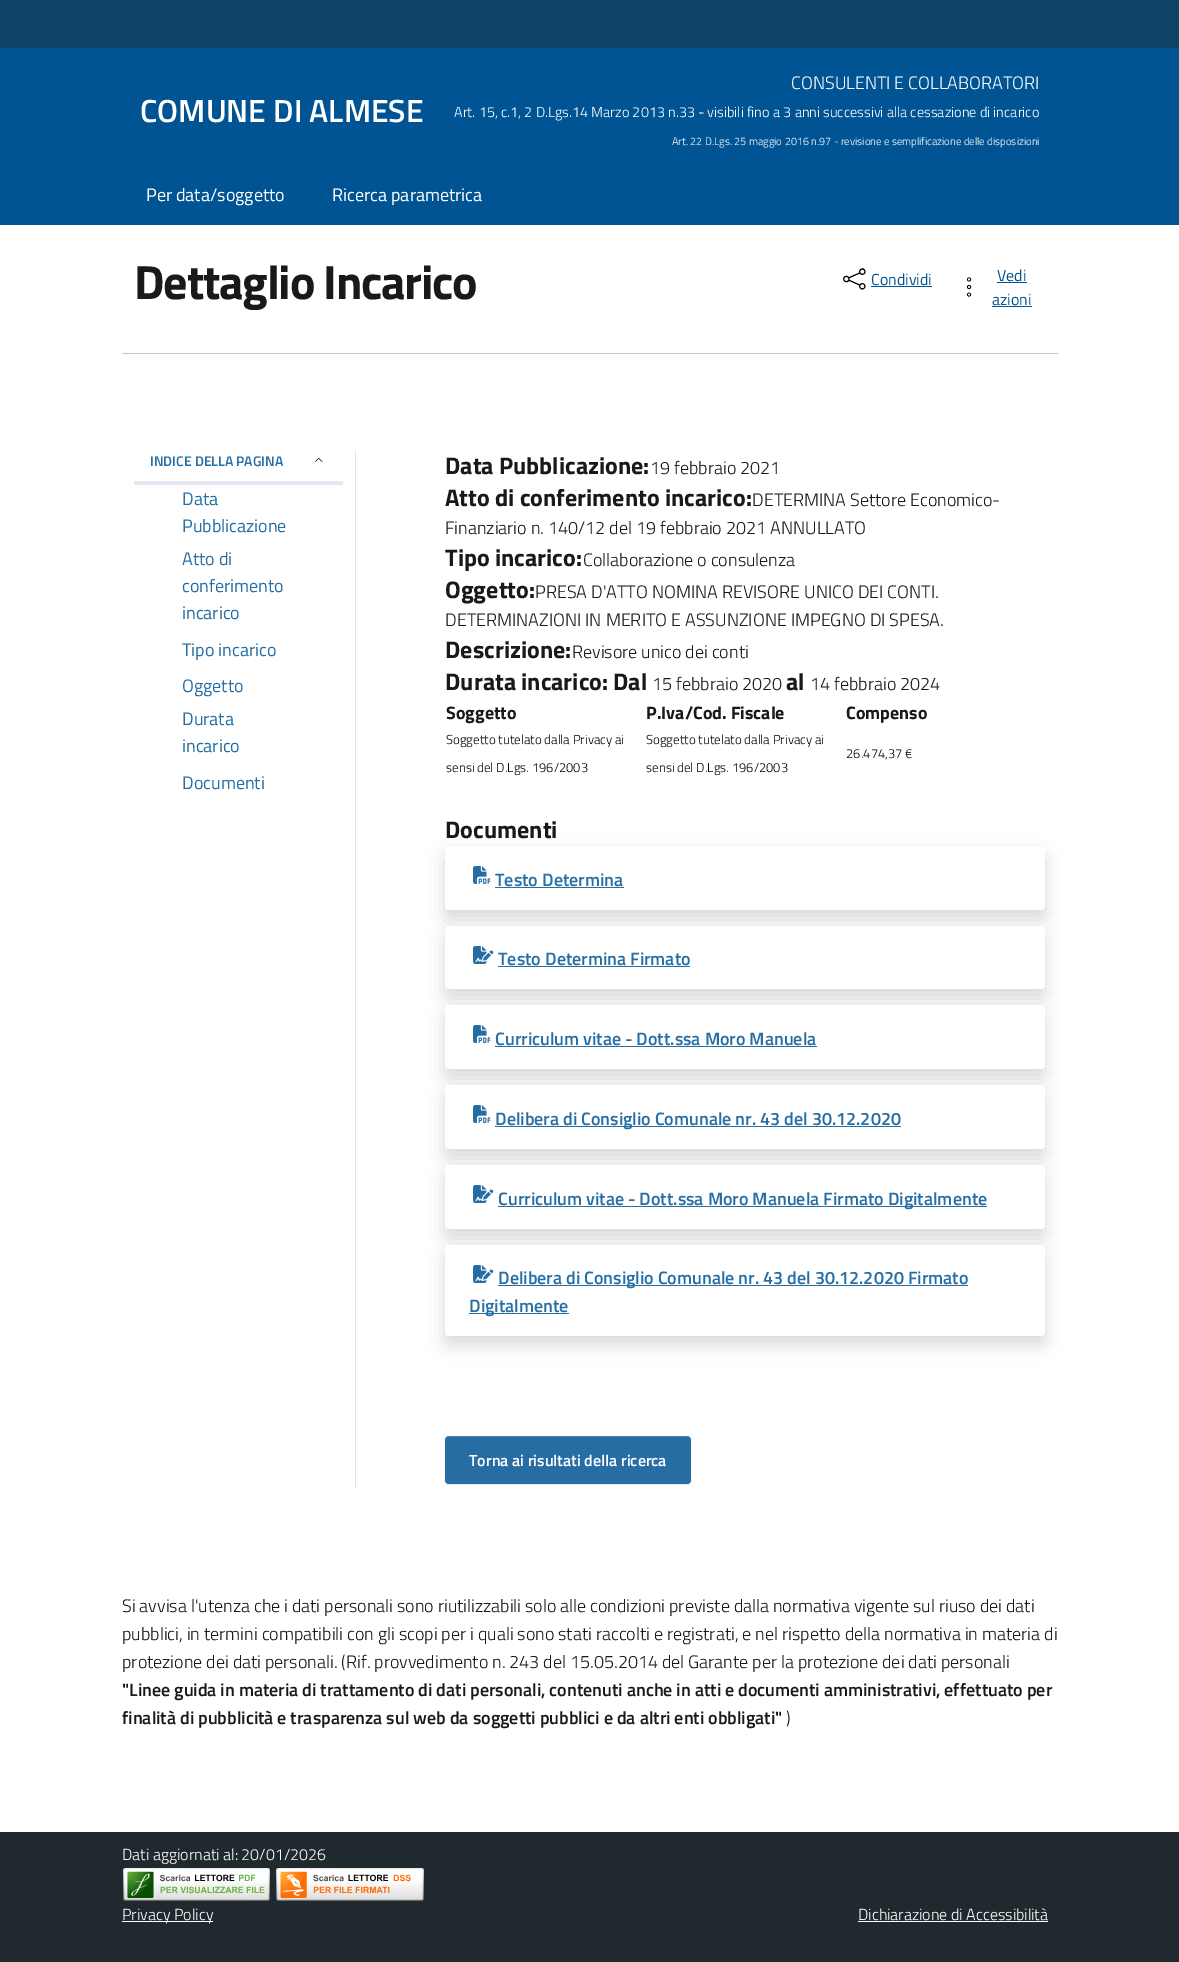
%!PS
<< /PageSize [1179 1962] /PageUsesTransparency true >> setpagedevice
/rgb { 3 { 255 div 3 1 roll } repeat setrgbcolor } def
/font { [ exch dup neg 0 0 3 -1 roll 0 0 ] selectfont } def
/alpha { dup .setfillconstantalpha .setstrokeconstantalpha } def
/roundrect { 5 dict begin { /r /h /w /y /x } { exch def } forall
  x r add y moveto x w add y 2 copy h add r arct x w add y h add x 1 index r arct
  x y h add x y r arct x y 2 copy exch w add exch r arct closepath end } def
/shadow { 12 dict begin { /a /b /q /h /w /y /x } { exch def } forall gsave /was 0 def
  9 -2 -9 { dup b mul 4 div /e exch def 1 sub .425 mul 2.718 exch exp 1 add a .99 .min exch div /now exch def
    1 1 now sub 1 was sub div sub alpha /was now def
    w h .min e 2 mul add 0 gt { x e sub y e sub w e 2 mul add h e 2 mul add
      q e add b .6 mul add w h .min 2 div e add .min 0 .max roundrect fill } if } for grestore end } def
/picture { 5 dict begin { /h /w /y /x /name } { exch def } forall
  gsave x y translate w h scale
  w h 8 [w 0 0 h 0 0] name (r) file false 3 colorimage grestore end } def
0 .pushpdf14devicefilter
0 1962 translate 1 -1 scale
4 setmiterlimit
255 255 255 rgb
0 0 1179 1962 rectfill
16 68 103 rgb
0 0 1179 48 rectfill
0 84 147 rgb
0 48 1179 177 rectfill
(img/1.rgb) 843 268 23 22 picture
871 286 61 1 rectfill
(img/2.rgb) 966 277 6 20 picture
[
  [997 282 30 1 0 84 147]
  [992 306 40 1 0 84 147]
  [122 353 936 1 198 198 198]
  [355 450 1 1038 229 229 229]
] { aload pop rgb rectfill } forall
(img/3.rgb) 315 457 8 5 picture
233 230 242 rgb
134 481 209 4 rectfill
0 0 0 rgb
445 855 600 64 4 9 0.15 shadow
255 255 255 rgb
445 846 600 64 4 roundrect fill
(img/4.rgb) 473 866 18 18 picture
38 110 163 rgb
495 887 129 1 rectfill
0 0 0 rgb
445 935 600 63 4 9 0.15 shadow
255 255 255 rgb
445 926 600 63 4 roundrect fill
(img/5.rgb) 473 946 21 18 picture
38 110 163 rgb
498 966 192 1 rectfill
0 0 0 rgb
445 1014 600 64 4 9 0.15 shadow
255 255 255 rgb
445 1005 600 64 4 roundrect fill
(img/4.rgb) 473 1025 18 18 picture
38 110 163 rgb
495 1046 322 1 rectfill
0 0 0 rgb
445 1094 600 64 4 9 0.15 shadow
255 255 255 rgb
445 1085 600 64 4 roundrect fill
(img/4.rgb) 473 1105 18 18 picture
38 110 163 rgb
495 1126 406 1 rectfill
0 0 0 rgb
445 1174 600 64 4 9 0.15 shadow
255 255 255 rgb
445 1165 600 64 4 roundrect fill
(img/5.rgb) 473 1185 21 18 picture
38 110 163 rgb
498 1206 489 1 rectfill
0 0 0 rgb
445 1254 600 91 4 9 0.15 shadow
255 255 255 rgb
445 1245 600 91 4 roundrect fill
(img/5.rgb) 473 1265 21 18 picture
38 110 163 rgb
498 1285 470 1 rectfill
469 1313 100 1 rectfill
gsave
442 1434 moveto 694 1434 lineto 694 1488 lineto 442 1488 lineto closepath 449 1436 moveto 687 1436 lineto 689 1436 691 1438 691 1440 curveto 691 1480 lineto 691 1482 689 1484 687 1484 curveto 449 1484 lineto 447 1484 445 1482 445 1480 curveto 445 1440 lineto 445 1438 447 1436 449 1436 curveto closepath eoclip newpath
0 0 0 rgb
445 1437 246 48 4 0.5 0.07 shadow
grestore
0.85 alpha
0 84 147 rgb
445 1436 246 48 4 roundrect fill
0.15 alpha
255 255 255 rgb
449 1437 moveto 687 1437 lineto 689 1437 691 1439 691 1441 curveto 691 1440 lineto 691 1438 689 1436 687 1436 curveto 449 1436 lineto 447 1436 445 1438 445 1440 curveto 445 1441 lineto 445 1439 447 1437 449 1437 curveto closepath fill
1 alpha
32 42 46 rgb
0 1832 1179 130 rectfill
(img/6.rgb) 122 1868 149 33 picture
(img/7.rgb) 275 1868 150 33 picture
255 255 255 rgb
122 1921 91 1 rectfill
858 1921 190 1 rectfill
/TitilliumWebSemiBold-SemiBold 32 font
140 122 moveto (COMUNE DI ALMESE) show
/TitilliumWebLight-Light 18 font
791 89 moveto (CONSULENTI E COLLABORATORI) show
/TitilliumWebLight-Light 14.4 font
454 117 moveto (Art. 15, c.1, 2 D.Lgs.14 Marzo 2013 n.33 - visibili fino a 3 anni successivi alla cessazione di incarico) show
/TitilliumWebLight-Light 10.8 font
672 145 moveto (Art. 22 D.Lgs. 25 maggio 2016 n.97 - revisione e semplificazione delle disposizioni) show
/TitilliumWeb-Regular 18 font
146 201 moveto (Per data/soggetto) show
332 201 moveto (Ricerca parametrica) show
/TitilliumWeb-Bold 48 font
25 25 25 rgb
134 299 moveto -1.25 0 (Dettaglio Incarico) ashow
/TitilliumWeb-Regular 16 font
0 84 147 rgb
[
  [(Condividi) 871 285]
  [(Vedi) 997 281]
  [(azioni) 992 305]
] { aload pop moveto show } forall
/TitilliumWebSemiBold-SemiBold 14 font
38 110 163 rgb
150 466 moveto (INDICE DELLA PAGINA) show
/TitilliumWeb-Regular 18 font
[
  [(Data) 182 505]
  [(Pubblicazione) 182 532]
  [(Atto di) 182 565]
  [(conferimento) 182 592]
  [(incarico) 182 619]
  [(Tipo incarico) 182 656]
  [(Oggetto) 182 692]
  [(Durata) 182 725]
  [(incarico) 182 752]
  [(Documenti) 182 789]
] { aload pop moveto show } forall
/TitilliumWeb-Bold 24 font
25 25 25 rgb
445 474 moveto (Data Pubblicazione:) show
/TitilliumWebLight-Light 18 font
650 474 moveto (19 febbraio 2021) show
/TitilliumWeb-Bold 24 font
445 506 moveto (Atto di conferimento incarico:) show
/TitilliumWebLight-Light 18 font
752 506 moveto (DETERMINA Settore Economico-) show
445 534 moveto (Finanziario n. 140/12 del 19 febbraio 2021 ANNULLATO) show
/TitilliumWeb-Bold 24 font
445 566 moveto (Tipo incarico:) show
/TitilliumWebLight-Light 18 font
583 566 moveto (Collaborazione o consulenza) show
/TitilliumWeb-Bold 24 font
445 598 moveto (Oggetto:) show
/TitilliumWebLight-Light 18 font
535 598 moveto (PRESA D'ATTO NOMINA REVISORE UNICO DEI CONTI.) show
445 626 moveto (DETERMINAZIONI IN MERITO E ASSUNZIONE IMPEGNO DI SPESA.) show
/TitilliumWeb-Bold 24 font
445 658 moveto (Descrizione:) show
/TitilliumWebLight-Light 18 font
572 658 moveto (Revisore unico dei conti) show
/TitilliumWeb-Bold 24 font
445 690 moveto (Durata incarico:) show
613 690 moveto (Dal) show
/TitilliumWebLight-Light 18 font
652 690 moveto (15 febbraio 2020) show
/TitilliumWeb-Bold 24 font
786 690 moveto (al) show
/TitilliumWebLight-Light 18 font
810 690 moveto (14 febbraio 2024) show
/TitilliumWeb-Bold 18 font
[
  [(Soggetto) 446 719]
  [(P.Iva/Cod. Fiscale) 646 719]
  [(Compenso) 846 719]
] { aload pop moveto show } forall
/TitilliumWebLight-Light 13 font
0 0 0 rgb
[
  [(Soggetto tutelato dalla Privacy ai) 446 744]
  [(sensi del D.Lgs. 196/2003) 446 772]
  [(Soggetto tutelato dalla Privacy ai) 646 744]
  [(sensi del D.Lgs. 196/2003) 646 772]
  [(26.474,37 €) 846 758]
] { aload pop moveto show } forall
/TitilliumWeb-Bold 24 font
25 25 25 rgb
445 838 moveto (Documenti) show
/TitilliumWebSemiBold-SemiBold 18 font
38 110 163 rgb
[
  [(Testo Determina) 495 886]
  [(Testo Determina Firmato) 498 965]
  [(Curriculum vitae - Dott.ssa Moro Manuela) 495 1045]
  [(Delibera di Consiglio Comunale nr. 43 del 30.12.2020) 495 1125]
  [(Curriculum vitae - Dott.ssa Moro Manuela Firmato Digitalmente) 498 1205]
  [(Delibera di Consiglio Comunale nr. 43 del 30.12.2020 Firmato) 498 1284]
  [(Digitalmente) 469 1312]
] { aload pop moveto show } forall
/TitilliumWebSemiBold-SemiBold 16 font
255 255 255 rgb
469 1466 moveto (Torna ai risultati della ricerca) show
/TitilliumWebLight-Light 18 font
25 25 25 rgb
[
  [(Si avvisa l'utenza che i dati personali sono riutilizzabili solo alle condizioni previste dalla normativa vigente sul riuso dei dati) 122 1612]
  [(pubblici, in termini compatibili con gli scopi per i quali sono stati raccolti e registrati, e nel rispetto della normativa in materia di) 122 1640]
  [(protezione dei dati personali. \(Rif. provvedimento n. 243 del 15.05.2014 del Garante per la protezione dei dati personali) 122 1668]
] { aload pop moveto show } forall
/TitilliumWebSemiBold-SemiBold 18 font
122 1696 moveto ("Linee guida in materia di trattamento di dati personali, contenuti anche in atti e documenti amministrativi, effettuato per) show
122 1724 moveto (finalità di pubblicità e trasparenza sul web da soggetti pubblici e da altri enti obbligati") show
/TitilliumWebLight-Light 18 font
786 1724 moveto (\)) show
/TitilliumWebLight-Light 16 font
255 255 255 rgb
[
  [(Dati aggiornati al: 20/01/2026) 122 1860]
  [(Privacy Policy) 122 1920]
  [(Dichiarazione di Accessibilità) 858 1920]
] { aload pop moveto show } forall
.poppdf14devicefilter showpage
